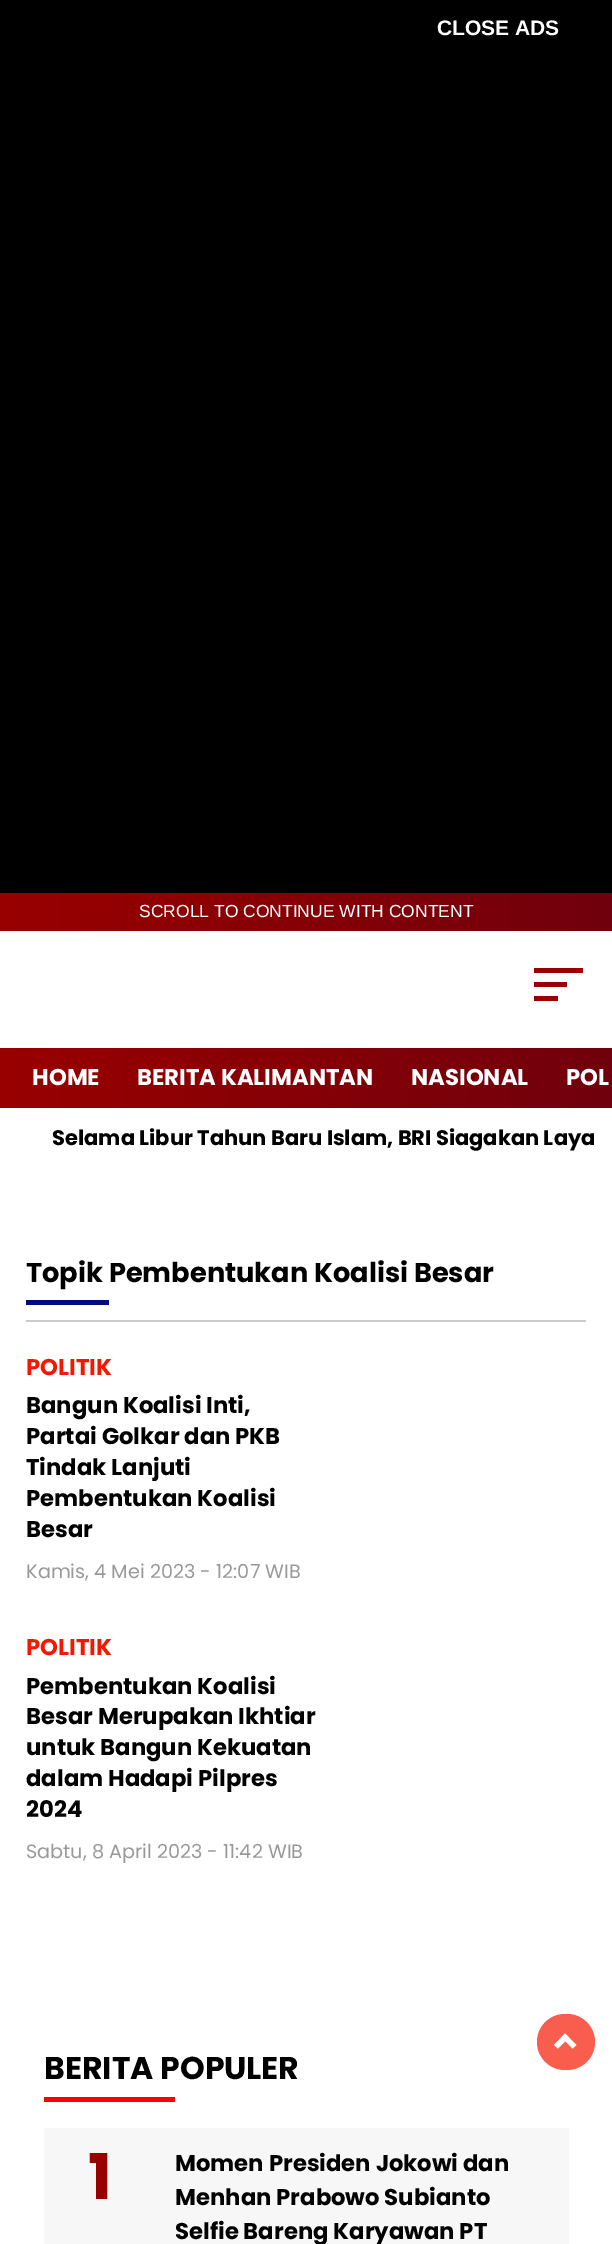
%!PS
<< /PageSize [612 2244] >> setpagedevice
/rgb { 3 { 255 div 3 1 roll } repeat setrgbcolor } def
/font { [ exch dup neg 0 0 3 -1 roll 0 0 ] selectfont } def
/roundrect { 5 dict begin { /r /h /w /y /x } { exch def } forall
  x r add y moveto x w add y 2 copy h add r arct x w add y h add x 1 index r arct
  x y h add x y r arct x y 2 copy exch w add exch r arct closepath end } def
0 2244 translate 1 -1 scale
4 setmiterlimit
255 255 255 rgb
0 0 612 2244 rectfill
0 0 0 rgb
0 0 612 893 rectfill
gsave 0 893 moveto 612 893 lineto 612 931 lineto 0 931 lineto closepath clip newpath
<< /ShadingType 2 /ColorSpace /DeviceRGB /Coords [0 912 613 912] /Extend [true true] /Function << /FunctionType 2 /Domain [0 1] /C0 [0.6 0 0] /C1 [0.439 0 0.051] /N 1 >> >> shfill grestore
[
  [534 968 49 5 153 0 0]
  [534 982 33 5 153 0 0]
  [534 996 24 5 153 0 0]
] { aload pop rgb rectfill } forall
gsave 0 1048 moveto 612 1048 lineto 612 1108 lineto 0 1108 lineto closepath clip newpath
<< /ShadingType 2 /ColorSpace /DeviceRGB /Coords [0 1078 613 1078] /Extend [true true] /Function << /FunctionType 2 /Domain [0 1] /C0 [0.6 0 0] /C1 [0.439 0 0.051] /N 1 >> >> shfill grestore
[
  [26 1320 560 2 204 204 204]
  [26 1300 83 5 1 10 128]
  [44 2097 131 5 255 0 0]
  [44 2128 525 116 247 247 247]
] { aload pop rgb rectfill } forall
248 93 77 rgb
537 2014 58 56 28 roundrect fill
255 255 255 rgb
558 2048.5 moveto 554 2045 lineto 565 2033.5 lineto 569 2037.5 lineto closepath fill
572.5 2048.5 moveto 561.5 2037.5 lineto 565 2033.5 lineto 576.5 2045 lineto closepath fill
/LiberationSans-Bold 21 font
437 35 moveto (CLOSE ADS) show
/LiberationSans-Regular 17.5 font
139 917 moveto (SCROLL TO CONTINUE WITH CONTENT) show
/Poppins-Bold 22.75 font
[
  [(HOME) 32 1085]
  [(BERITA KALIMANTAN) 137 1085]
  [(NASIONAL) 411 1085]
  [(POL) 566 1085]
] { aload pop moveto show } forall
/Poppins-Bold 21 font
0 0 0 rgb
52 1145 moveto (Selama Libur Tahun Baru Islam, BRI Siagakan Laya) show
/Poppins-Bold 27.25 font
26 1282 moveto (Topik Pembentukan Koalisi Besar) show
/Poppins-Bold 22.75 font
245 23 0 rgb
26 1375 moveto (POLITIK) show
0 0 0 rgb
[
  [(Bangun Koalisi Inti,) 26 1413]
  [(Partai Golkar dan PKB) 26 1444]
  [(Tindak Lanjuti) 26 1475]
  [(Pembentukan Koalisi) 26 1506]
  [(Besar) 26 1537]
] { aload pop moveto show } forall
/Poppins-Regular 19.25 font
153 153 153 rgb
26 1578 moveto (Kamis, 4 Mei 2023 - 12:07 WIB) show
/Poppins-Bold 22.75 font
245 23 0 rgb
26 1655 moveto (POLITIK) show
0 0 0 rgb
[
  [(Pembentukan Koalisi) 26 1694]
  [(Besar Merupakan Ikhtiar) 26 1724]
  [(untuk Bangun Kekuatan) 26 1755]
  [(dalam Hadapi Pilpres) 26 1786]
  [(2024) 26 1817]
] { aload pop moveto show } forall
/Poppins-Regular 19.25 font
153 153 153 rgb
26 1858 moveto (Sabtu, 8 April 2023 - 11:42 WIB) show
/Poppins-Bold 31.5 font
0 0 0 rgb
44 2079 moveto (BERITA POPULER) show
/Poppins-Bold 63 font
153 0 0 rgb
88 2199 moveto (1) show
/Poppins-Bold 22.75 font
0 0 0 rgb
[
  [(Momen Presiden Jokowi dan) 175 2171]
  [(Menhan Prabowo Subianto) 175 2205]
  [(Selfie Bareng Karyawan PT) 175 2239]
] { aload pop moveto show } forall
showpage
